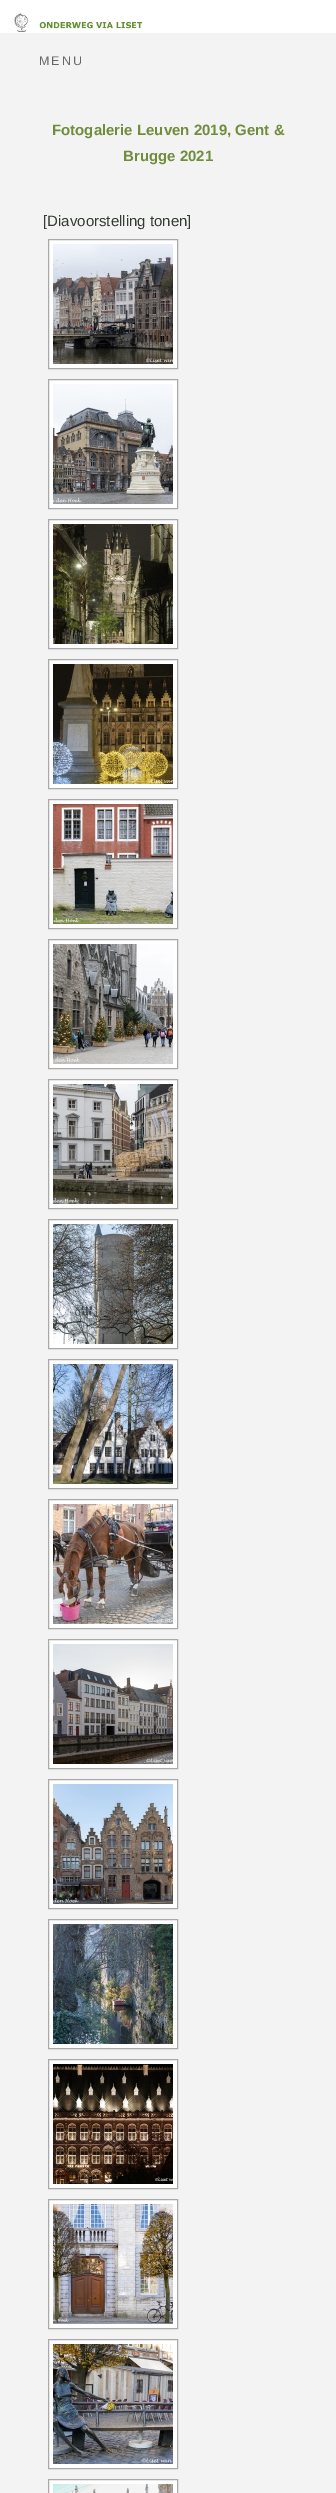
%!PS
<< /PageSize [336 2493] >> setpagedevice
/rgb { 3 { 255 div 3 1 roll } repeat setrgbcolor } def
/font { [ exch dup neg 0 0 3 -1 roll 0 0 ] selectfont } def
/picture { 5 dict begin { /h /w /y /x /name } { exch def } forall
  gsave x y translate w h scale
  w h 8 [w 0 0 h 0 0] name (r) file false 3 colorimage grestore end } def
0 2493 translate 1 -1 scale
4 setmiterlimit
255 255 255 rgb
0 0 336 2493 rectfill
(img/1.rgb) 0 13 336 20 picture
243 243 243 rgb
0 33 336 2460 rectfill
255 255 255 rgb
48.5 239.5 moveto 177.5 239.5 lineto 177.5 368.5 lineto 48.5 368.5 lineto closepath gsave fill grestore
169 169 169 rgb
stroke
(img/2.rgb) 53 244 120 120 picture
255 255 255 rgb
48.5 379.5 moveto 177.5 379.5 lineto 177.5 508.5 lineto 48.5 508.5 lineto closepath gsave fill grestore
169 169 169 rgb
stroke
(img/3.rgb) 53 384 120 120 picture
255 255 255 rgb
48.5 519.5 moveto 177.5 519.5 lineto 177.5 648.5 lineto 48.5 648.5 lineto closepath gsave fill grestore
169 169 169 rgb
stroke
(img/4.rgb) 53 524 120 120 picture
255 255 255 rgb
48.5 659.5 moveto 177.5 659.5 lineto 177.5 788.5 lineto 48.5 788.5 lineto closepath gsave fill grestore
169 169 169 rgb
stroke
(img/5.rgb) 53 664 120 120 picture
255 255 255 rgb
48.5 799.5 moveto 177.5 799.5 lineto 177.5 928.5 lineto 48.5 928.5 lineto closepath gsave fill grestore
169 169 169 rgb
stroke
(img/6.rgb) 53 804 120 120 picture
255 255 255 rgb
48.5 939.5 moveto 177.5 939.5 lineto 177.5 1068.5 lineto 48.5 1068.5 lineto closepath gsave fill grestore
169 169 169 rgb
stroke
(img/7.rgb) 53 944 120 120 picture
255 255 255 rgb
48.5 1079.5 moveto 177.5 1079.5 lineto 177.5 1208.5 lineto 48.5 1208.5 lineto closepath gsave fill grestore
169 169 169 rgb
stroke
(img/8.rgb) 53 1084 120 120 picture
255 255 255 rgb
48.5 1219.5 moveto 177.5 1219.5 lineto 177.5 1348.5 lineto 48.5 1348.5 lineto closepath gsave fill grestore
169 169 169 rgb
stroke
(img/9.rgb) 53 1224 120 120 picture
255 255 255 rgb
48.5 1359.5 moveto 177.5 1359.5 lineto 177.5 1488.5 lineto 48.5 1488.5 lineto closepath gsave fill grestore
169 169 169 rgb
stroke
(img/10.rgb) 53 1364 120 120 picture
255 255 255 rgb
48.5 1499.5 moveto 177.5 1499.5 lineto 177.5 1628.5 lineto 48.5 1628.5 lineto closepath gsave fill grestore
169 169 169 rgb
stroke
(img/11.rgb) 53 1504 120 120 picture
255 255 255 rgb
48.5 1639.5 moveto 177.5 1639.5 lineto 177.5 1768.5 lineto 48.5 1768.5 lineto closepath gsave fill grestore
169 169 169 rgb
stroke
(img/12.rgb) 53 1644 120 120 picture
255 255 255 rgb
48.5 1779.5 moveto 177.5 1779.5 lineto 177.5 1908.5 lineto 48.5 1908.5 lineto closepath gsave fill grestore
169 169 169 rgb
stroke
(img/13.rgb) 53 1784 120 120 picture
255 255 255 rgb
48.5 1919.5 moveto 177.5 1919.5 lineto 177.5 2048.5 lineto 48.5 2048.5 lineto closepath gsave fill grestore
169 169 169 rgb
stroke
(img/14.rgb) 53 1924 120 120 picture
255 255 255 rgb
48.5 2059.5 moveto 177.5 2059.5 lineto 177.5 2188.5 lineto 48.5 2188.5 lineto closepath gsave fill grestore
169 169 169 rgb
stroke
(img/15.rgb) 53 2064 120 120 picture
255 255 255 rgb
48.5 2199.5 moveto 177.5 2199.5 lineto 177.5 2328.5 lineto 48.5 2328.5 lineto closepath gsave fill grestore
169 169 169 rgb
stroke
(img/16.rgb) 53 2204 120 120 picture
255 255 255 rgb
48.5 2339.5 moveto 177.5 2339.5 lineto 177.5 2468.5 lineto 48.5 2468.5 lineto closepath gsave fill grestore
169 169 169 rgb
stroke
(img/17.rgb) 53 2344 120 120 picture
255 255 255 rgb
48.5 2479.5 moveto 177.5 2479.5 lineto 177.5 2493.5 lineto 48.5 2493.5 lineto closepath gsave fill grestore
169 169 169 rgb
stroke
(img/18.rgb) 53 2484 120 9 picture
/LiberationSans-Regular 12.5 font
102 102 102 rgb
39 65 moveto 2 0 (MENU) ashow
/LiberationSans-Bold 15 font
112 141 61 rgb
52 135 moveto (Fotogalerie Leuven 2019, Gent &) show
123 161 moveto (Brugge 2021) show
/LiberationSans-Regular 15 font
51 59 50 rgb
43 226 moveto ([Diavoorstelling tonen]) show
showpage
